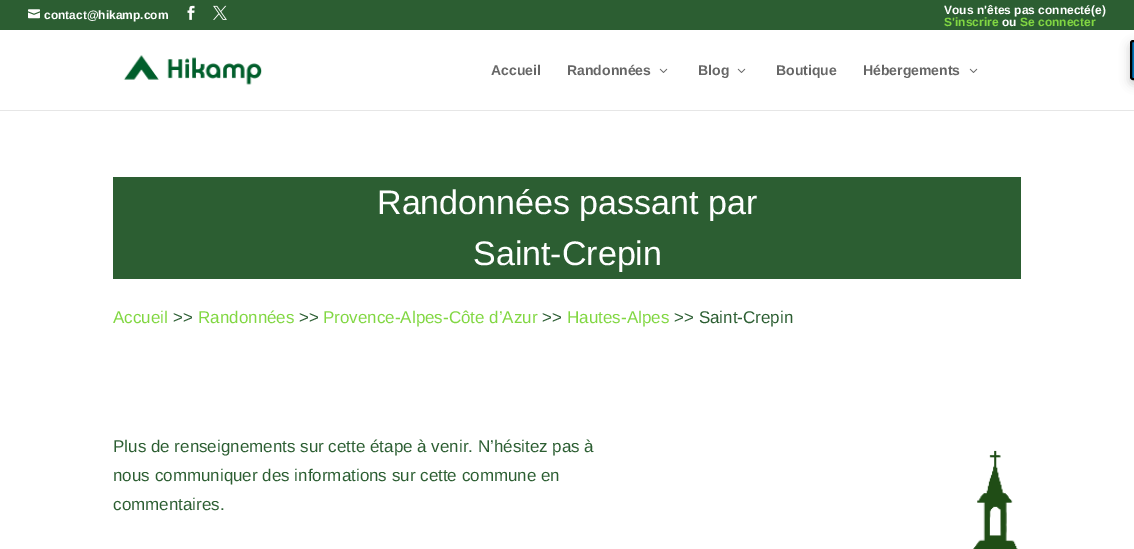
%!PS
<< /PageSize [1134 549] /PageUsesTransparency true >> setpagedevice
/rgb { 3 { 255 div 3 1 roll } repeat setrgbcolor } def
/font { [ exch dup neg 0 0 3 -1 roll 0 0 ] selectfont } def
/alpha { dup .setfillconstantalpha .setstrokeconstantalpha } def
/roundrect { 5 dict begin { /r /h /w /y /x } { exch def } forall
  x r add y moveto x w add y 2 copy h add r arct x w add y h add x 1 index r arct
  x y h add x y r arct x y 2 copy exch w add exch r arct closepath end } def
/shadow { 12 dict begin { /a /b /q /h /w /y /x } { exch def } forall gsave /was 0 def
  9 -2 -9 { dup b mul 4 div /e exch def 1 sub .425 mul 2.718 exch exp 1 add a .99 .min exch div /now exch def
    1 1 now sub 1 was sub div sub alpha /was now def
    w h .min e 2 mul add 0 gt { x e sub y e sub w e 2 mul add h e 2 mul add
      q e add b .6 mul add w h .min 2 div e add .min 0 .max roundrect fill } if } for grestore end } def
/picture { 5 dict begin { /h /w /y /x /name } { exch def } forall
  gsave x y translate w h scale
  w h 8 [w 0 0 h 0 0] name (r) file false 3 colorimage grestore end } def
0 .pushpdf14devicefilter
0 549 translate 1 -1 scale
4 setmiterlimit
255 255 255 rgb
0 0 1134 549 rectfill
44 94 50 rgb
0 0 1134 30 rectfill
(img/1.rgb) 28 9 12 10 picture
(img/2.rgb) 187 5 8 15 picture
(img/3.rgb) 213 5 14 15 picture
230 230 230 rgb
0 110 1134 1 rectfill
(img/4.rgb) 123 55 139 30 picture
(img/5.rgb) 659 68 9 5 picture
(img/5.rgb) 737 68 9 5 picture
(img/5.rgb) 969 68 9 5 picture
44 94 50 rgb
113 177 908 102 rectfill
(img/6.rgb) 973 450 45 99 picture
0 0 0 rgb
1130 44 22 40 3 5 0.2 shadow
0 115 183 rgb
1133 41 moveto 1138 41 lineto 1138 79 lineto 1133 79 lineto 1132 79 1131 78 1131 77 curveto 1131 43 lineto 1131 42 1132 41 1133 41 curveto closepath gsave fill grestore
0 0 0 rgb
2 setlinewidth
stroke
/LiberationSans-Bold 12 font
255 255 255 rgb
44 19 moveto (contact@hikamp.com) show
944 14 moveto (Vous n'êtes pas connecté\(e\)) show
129 215 66 rgb
944 26 moveto (S'inscrire) show
255 255 255 rgb
1002 26 moveto (ou) show
129 215 66 rgb
1020 26 moveto (Se connecter) show
/LiberationSans-Bold 14 font
102 102 102 rgb
[
  [(Accueil) 491 75]
  [(Randonnées) 567 75]
  [(Blog) 698 75]
  [(Boutique) 776 75]
  [(Hébergements) 863 75]
] { aload pop moveto show } forall
/LiberationSans-Regular 34 font
255 255 255 rgb
377 214 moveto (Randonnées passant par) show
473 265 moveto (Saint-Crepin) show
/LiberationSans-Regular 17 font
129 215 66 rgb
113 323 moveto (Accueil) show
44 94 50 rgb
173 323 moveto (>>) show
129 215 66 rgb
198 323 moveto (Randonnées) show
44 94 50 rgb
299 323 moveto (>>) show
129 215 66 rgb
323 323 moveto (Provence-Alpes-Côte d’Azur) show
44 94 50 rgb
542 323 moveto (>>) show
129 215 66 rgb
567 323 moveto (Hautes-Alpes) show
44 94 50 rgb
[
  [(>> Saint-Crepin) 674 323]
  [(Plus de renseignements sur cette étape à venir. N’hésitez pas à) 113 452]
  [(nous communiquer des informations sur cette commune en) 113 481]
  [(commentaires.) 113 510]
] { aload pop moveto show } forall
.poppdf14devicefilter showpage
